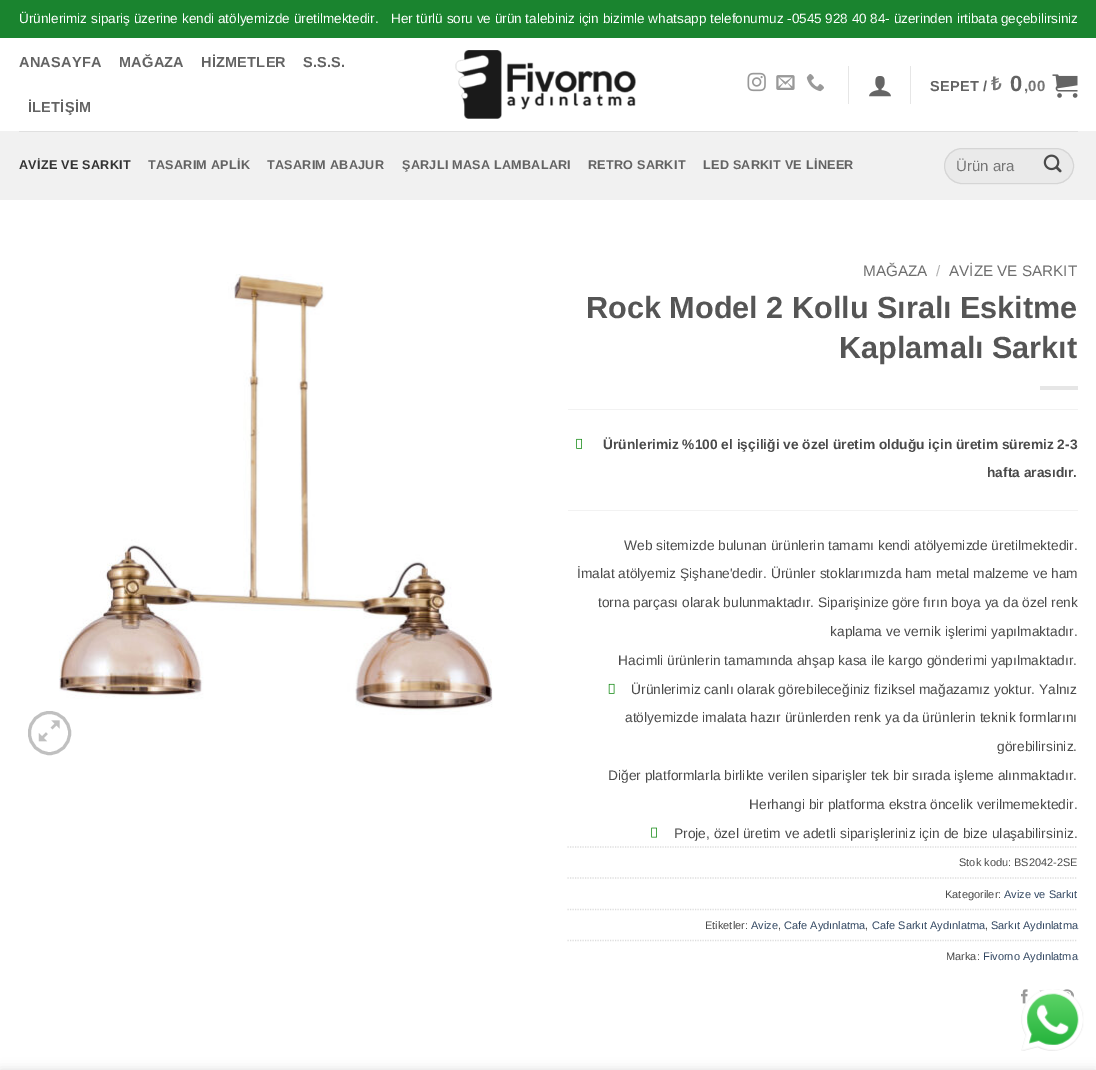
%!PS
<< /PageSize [1096 1070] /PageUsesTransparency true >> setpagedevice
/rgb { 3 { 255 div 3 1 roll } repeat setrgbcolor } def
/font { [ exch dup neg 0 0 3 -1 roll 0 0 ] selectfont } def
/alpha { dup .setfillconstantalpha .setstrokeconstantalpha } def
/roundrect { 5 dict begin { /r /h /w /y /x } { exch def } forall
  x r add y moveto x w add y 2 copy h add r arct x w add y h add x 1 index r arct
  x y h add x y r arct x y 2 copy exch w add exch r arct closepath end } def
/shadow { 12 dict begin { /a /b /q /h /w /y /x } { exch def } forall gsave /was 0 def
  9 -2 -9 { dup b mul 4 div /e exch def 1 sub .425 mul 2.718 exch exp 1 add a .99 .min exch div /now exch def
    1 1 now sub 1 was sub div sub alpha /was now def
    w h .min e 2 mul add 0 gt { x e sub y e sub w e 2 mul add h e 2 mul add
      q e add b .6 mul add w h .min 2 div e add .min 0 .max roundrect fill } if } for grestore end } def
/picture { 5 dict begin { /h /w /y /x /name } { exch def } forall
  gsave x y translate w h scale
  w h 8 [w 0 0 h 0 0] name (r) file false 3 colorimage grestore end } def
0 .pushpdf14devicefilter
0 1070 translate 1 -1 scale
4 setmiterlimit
255 255 255 rgb
0 0 1096 1070 rectfill
26 132 47 rgb
0 0 1096 38 rectfill
(img/1.rgb) 455 50 181 69 picture
(img/2.rgb) 747 72 19 20 picture
(img/3.rgb) 776 75 19 15 picture
(img/4.rgb) 806 74 18 18 picture
230 230 230 rgb
848 66 1 38 rectfill
(img/5.rgb) 869 76 22 21 picture
910 66 1 38 rectfill
(img/6.rgb) 1052 74 26 24 picture
241 241 241 rgb
0 131 1096 69 rectfill
224 224 224 rgb
19 131 1059 1 rectfill
234 234 234 rgb
944 148 130 36 18 roundrect fill
0.09 alpha
0 0 0 rgb
944.5 148.5 129 35 17.5 roundrect stroke
1 alpha
(img/7.rgb) 1043 154 19 19 picture
(img/8.rgb) 59 274 434 441 picture
192 192 192 rgb
3 setlinewidth
29.5 712.5 40 41 20 roundrect stroke
(img/9.rgb) 38 720 22 22 picture
230 230 230 rgb
1040 386 38 4 rectfill
242 242 242 rgb
568 409 510 1 rectfill
(img/10.rgb) 576 438 6 11 picture
568 510 510 1 rectfill
(img/11.rgb) 608 683 7 11 picture
(img/12.rgb) 651 827 6 11 picture
221 221 221 rgb
1.2 setlinewidth
[1.25 1.25] 0 setdash
567.5 847 moveto 1077.5 847 lineto stroke
567.5 878 moveto 1077.5 878 lineto stroke
567.5 909.5 moveto 1077.5 909.5 lineto stroke
567.5 940.5 moveto 1077.5 940.5 lineto stroke
(img/13.rgb) 1021 989 7 15 picture
(img/14.rgb) 1039 990 5 2 picture
(img/15.rgb) 1062 989 12 9 picture
(img/16.rgb) 1021 989 63 62 picture
0 0 0 rgb
0 1070 1096 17 0 5.5 0.14 shadow
/LiberationSans-Regular 13.5 font
255 255 255 rgb
19 23 moveto (Ürünlerimiz sipariş üzerine kendi atölyemizde üretilmektedir.) show
391 23 moveto (Her türlü soru ve ürün talebiniz için bizimle whatsapp telefonumuz -0545 928 40 84- üzerinden irtibata geçebilirsiniz) show
/LiberationSans-Bold 14.5 font
99 99 99 rgb
19 67 moveto 0.25 0 (ANASAYFA) ashow
119 67 moveto 0.25 0 (MAĞAZA) ashow
201 67 moveto 0.25 0 (HİZMETLER) ashow
303 67 moveto 0.25 0 (S.S.S.) ashow
28 112 moveto 0.25 0 (İLETİŞİM) ashow
930 91 moveto 0.25 0 (SEPET /) ashow
/NotoSans-SemiBold 19 font
117 117 117 rgb
991 90 moveto 0.25 0 (₺) ashow
/LiberationSans-Bold 22 font
99 99 99 rgb
1010 91 moveto 0.25 0 (0) ashow
/LiberationSans-Bold 15 font
117 117 117 rgb
1024 91 moveto 0.25 0 (,00) ashow
/LiberationSans-Bold 12.6 font
51 51 51 rgb
19 169 moveto 0.25 0 (AVİZE VE SARKIT) ashow
99 99 99 rgb
148 169 moveto 0.25 0 (TASARIM APLİK) ashow
267 169 moveto 0.25 0 (TASARIM ABAJUR) ashow
402 169 moveto 0.25 0 (ŞARJLI MASA LAMBALARI) ashow
588 169 moveto 0.25 0 (RETRO SARKIT) ashow
703 169 moveto 0.25 0 (LED SARKIT VE LİNEER) ashow
/LiberationSans-Regular 15 font
117 117 117 rgb
956 171 moveto (Ürün ara) show
/LiberationSans-Regular 15.25 font
110 110 110 rgb
863 276 moveto (MAĞAZA) show
178 178 178 rgb
936 276 moveto (/) show
110 110 110 rgb
949 276 moveto (AVİZE VE SARKIT) show
/LiberationSans-Bold 30.6 font
85 85 85 rgb
586 318 moveto (Rock Model 2 Kollu Sıralı Eskitme) show
839 358 moveto (Kaplamalı Sarkıt) show
/LiberationSans-Bold 13.75 font
74 74 74 rgb
603 449 moveto (Ürünlerimiz %100 el işçiliği ve özel üretim olduğu için üretim süremiz 2-3) show
987 477 moveto (hafta arasıdır.) show
/LiberationSans-Regular 13.75 font
[
  [(Web sitemizde bulunan ürünlerin tamamı kendi atölyemizde üretilmektedir.) 624 550]
  [(İmalat atölyemiz Şişhane'dedir. Ürünler stoklarımızda ham metal malzeme ve ham) 577 578]
  [(torna parçası olarak bulunmaktadır. Siparişinize göre fırın boya ya da özel renk) 598 607]
  [(kaplama ve vernik işlerimi yapılmaktadır.) 830 636]
  [(Hacimli ürünlerin tamamında ahşap kasa ile kargo gönderimi yapılmaktadır.) 618 665]
  [(Ürünlerimiz canlı olarak görebileceğiniz fiziksel mağazamız yoktur. Yalnız) 631 694]
  [(atölyemizde imalata hazır ürünlerden renk ya da ürünlerin teknik formlarını) 625 722]
  [(görebilirsiniz.) 997 751]
  [(Diğer platformlarla birlikte verilen siparişler tek bir sırada işleme alınmaktadır.) 608 780]
  [(Herhangi bir platforma ekstra öncelik verilmemektedir.) 749 809]
  [(Proje, özel üretim ve adetli siparişleriniz için de bize ulaşabilirsiniz.) 674 838]
] { aload pop moveto show } forall
/LiberationSans-Regular 11 font
959 866 moveto (Stok kodu: BS2042-2SE) show
945 898 moveto (Kategoriler:) show
51 72 98 rgb
1004 898 moveto (Avize ve Sarkıt) show
74 74 74 rgb
705 929 moveto (Etiketler:) show
51 72 98 rgb
751 929 moveto (Avize) show
74 74 74 rgb
778 929 moveto (,) show
51 72 98 rgb
784 929 moveto (Cafe Aydınlatma) show
74 74 74 rgb
865 929 moveto (,) show
51 72 98 rgb
872 929 moveto (Cafe Sarkıt Aydınlatma) show
74 74 74 rgb
985 929 moveto (,) show
51 72 98 rgb
991 929 moveto (Sarkıt Aydınlatma) show
74 74 74 rgb
946 960 moveto (Marka:) show
51 72 98 rgb
983 960 moveto (Fivorno Aydınlatma) show
.poppdf14devicefilter showpage
